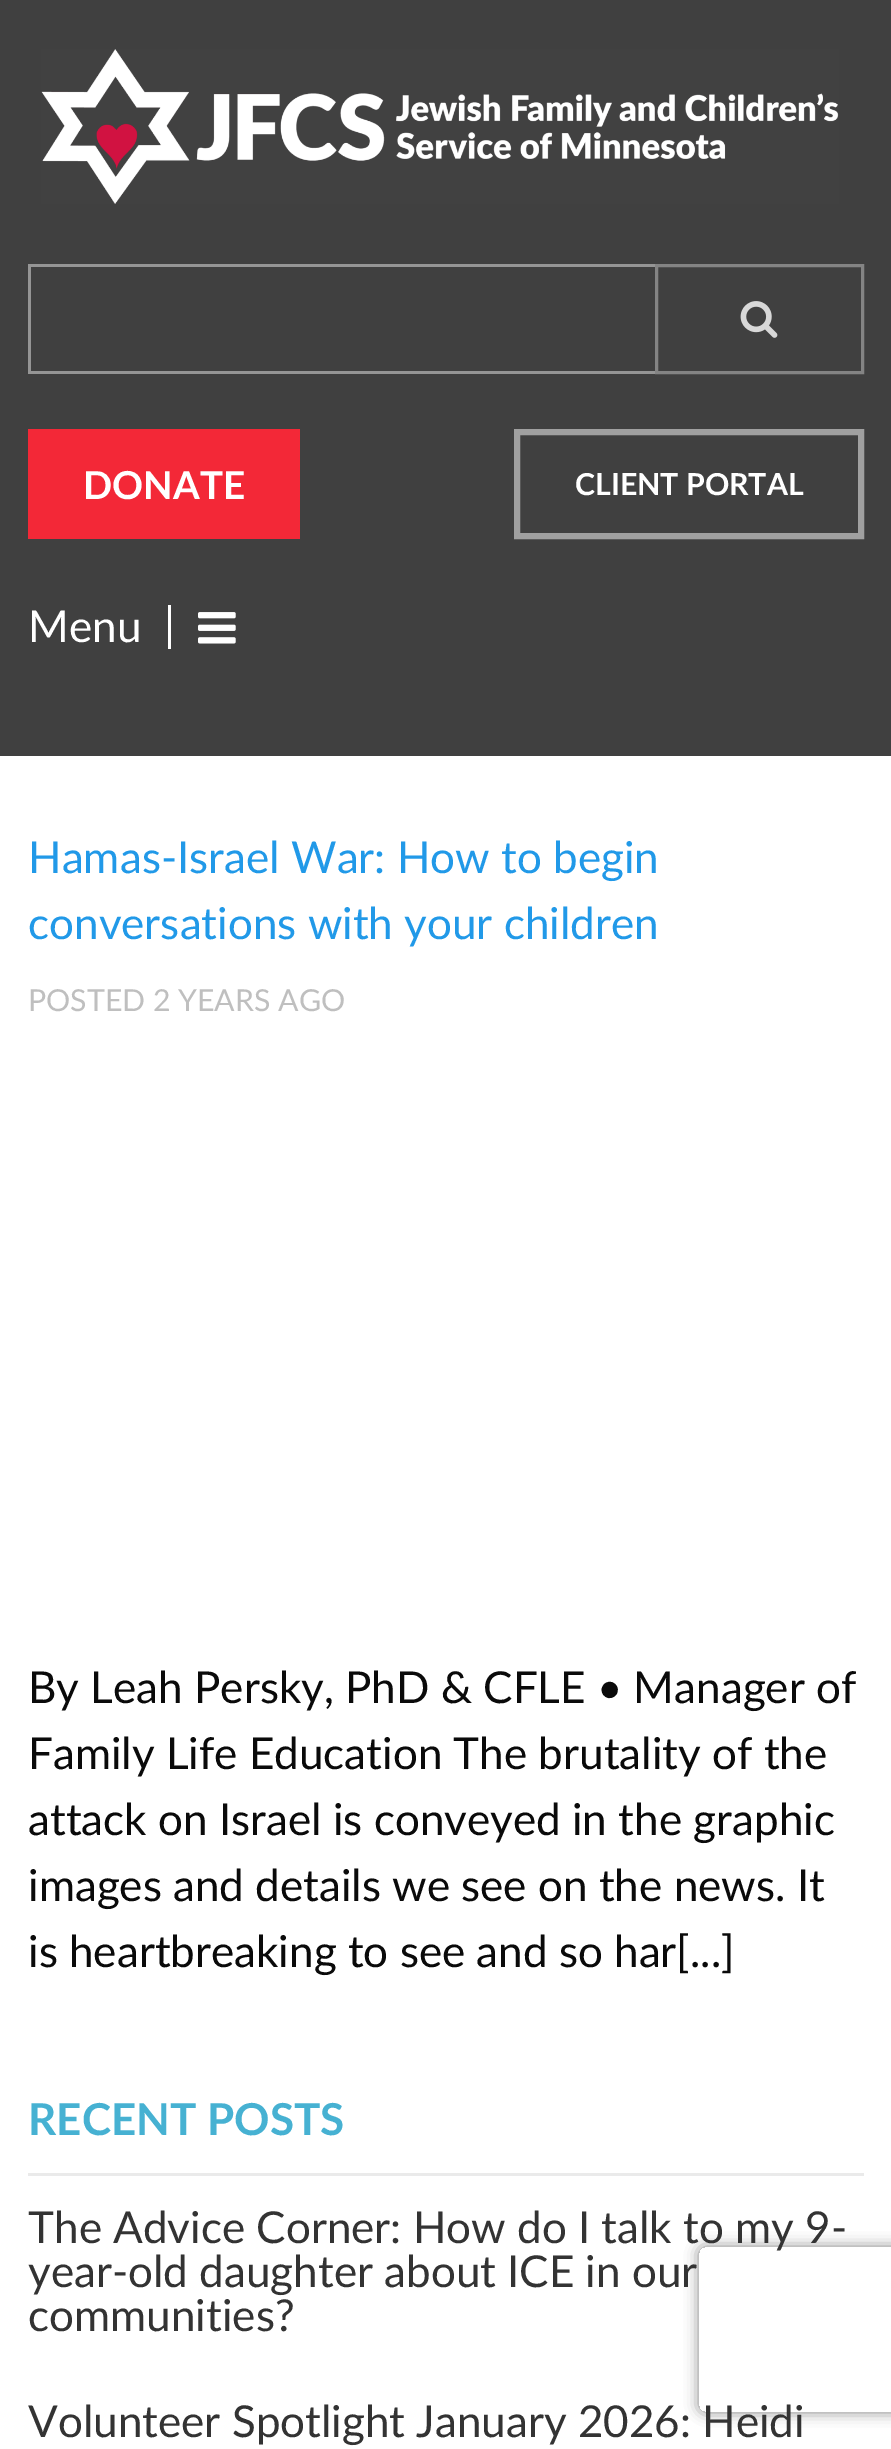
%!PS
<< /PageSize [891 2449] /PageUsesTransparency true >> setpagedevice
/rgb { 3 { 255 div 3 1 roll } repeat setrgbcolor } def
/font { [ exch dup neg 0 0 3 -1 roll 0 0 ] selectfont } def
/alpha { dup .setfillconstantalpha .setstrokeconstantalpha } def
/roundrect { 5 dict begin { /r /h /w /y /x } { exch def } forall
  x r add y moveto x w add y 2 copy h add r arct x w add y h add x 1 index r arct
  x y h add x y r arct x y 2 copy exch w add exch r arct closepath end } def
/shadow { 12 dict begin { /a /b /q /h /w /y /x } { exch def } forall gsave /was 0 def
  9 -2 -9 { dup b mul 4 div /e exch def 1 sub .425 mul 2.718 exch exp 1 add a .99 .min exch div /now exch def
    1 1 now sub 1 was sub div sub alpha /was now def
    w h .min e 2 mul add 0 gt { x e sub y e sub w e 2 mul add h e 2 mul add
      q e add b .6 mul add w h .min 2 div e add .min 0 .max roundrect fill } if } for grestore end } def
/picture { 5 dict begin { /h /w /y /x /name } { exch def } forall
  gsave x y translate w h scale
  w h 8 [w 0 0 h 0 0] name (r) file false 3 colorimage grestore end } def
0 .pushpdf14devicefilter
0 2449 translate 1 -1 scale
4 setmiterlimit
255 255 255 rgb
0 0 891 2449 rectfill
64 64 64 rgb
0 0 891 756 rectfill
(img/1.rgb) 41 49 798 155 picture
[
  [28 264 627 3 149 149 149]
  [28 371 627 3 149 149 149]
  [28 264 3 110 149 149 149]
] { aload pop rgb rectfill } forall
132 132 132 rgb
3 setlinewidth
656.5 265.5 206 107 rectstroke
(img/2.rgb) 740 301 38 37 picture
243 40 55 rgb
28 429 272 110 rectfill
160 160 160 rgb
6 setlinewidth
517 432 344 104 rectstroke
255 255 255 rgb
168 605 3 44 rectfill
(img/3.rgb) 198 612 38 32 picture
234 234 234 rgb
28 2173 836 3 rectfill
gsave
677 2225 moveto 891 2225 lineto 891 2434 lineto 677 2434 lineto closepath 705 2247 moveto 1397 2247 lineto 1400.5 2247 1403 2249.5 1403 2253 curveto 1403 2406 lineto 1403 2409.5 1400.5 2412 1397 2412 curveto 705 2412 lineto 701.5 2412 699 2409.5 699 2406 curveto 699 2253 lineto 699 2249.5 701.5 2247 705 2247 curveto closepath eoclip newpath
128 128 128 rgb
699 2247 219 165 6 7 1 shadow
grestore
/Lato-Bold 38.5 font
255 255 255 rgb
83 499 moveto (DONATE) show
/Lato-Bold 30.25 font
575 495 moveto (CLIENT PORTAL) show
/Lato-Regular 44 font
28 642 moveto (Menu) show
33 153 232 rgb
28 873 moveto (Hamas-Israel War: How to begin) show
28 939 moveto (conversations with your children) show
/Lato-Regular 30.25 font
191 191 191 rgb
28 1011 moveto (POSTED 2 YEARS AGO) show
/Lato-Regular 44 font
10 10 10 rgb
[
  [(By Leah Persky, PhD & CFLE • Manager of) 28 1703]
  [(Family Life Education The brutality of the) 28 1769]
  [(attack on Israel is conveyed in the graphic) 28 1835]
  [(images and details we see on the news. It) 28 1901]
  [(is heartbreaking to see and so har[...]) 28 1967]
] { aload pop moveto show } forall
/Lato-Bold 44 font
70 177 210 rgb
28 2135 moveto (RECENT POSTS) show
/Lato-Regular 44 font
51 51 51 rgb
[
  [(The Advice Corner: How do I talk to my 9-) 28 2243]
  [(year-old daughter about ICE in our) 28 2287]
  [(communities?) 28 2331]
  [(Volunteer Spotlight January 2026: Heidi) 28 2437]
] { aload pop moveto show } forall
.poppdf14devicefilter showpage
